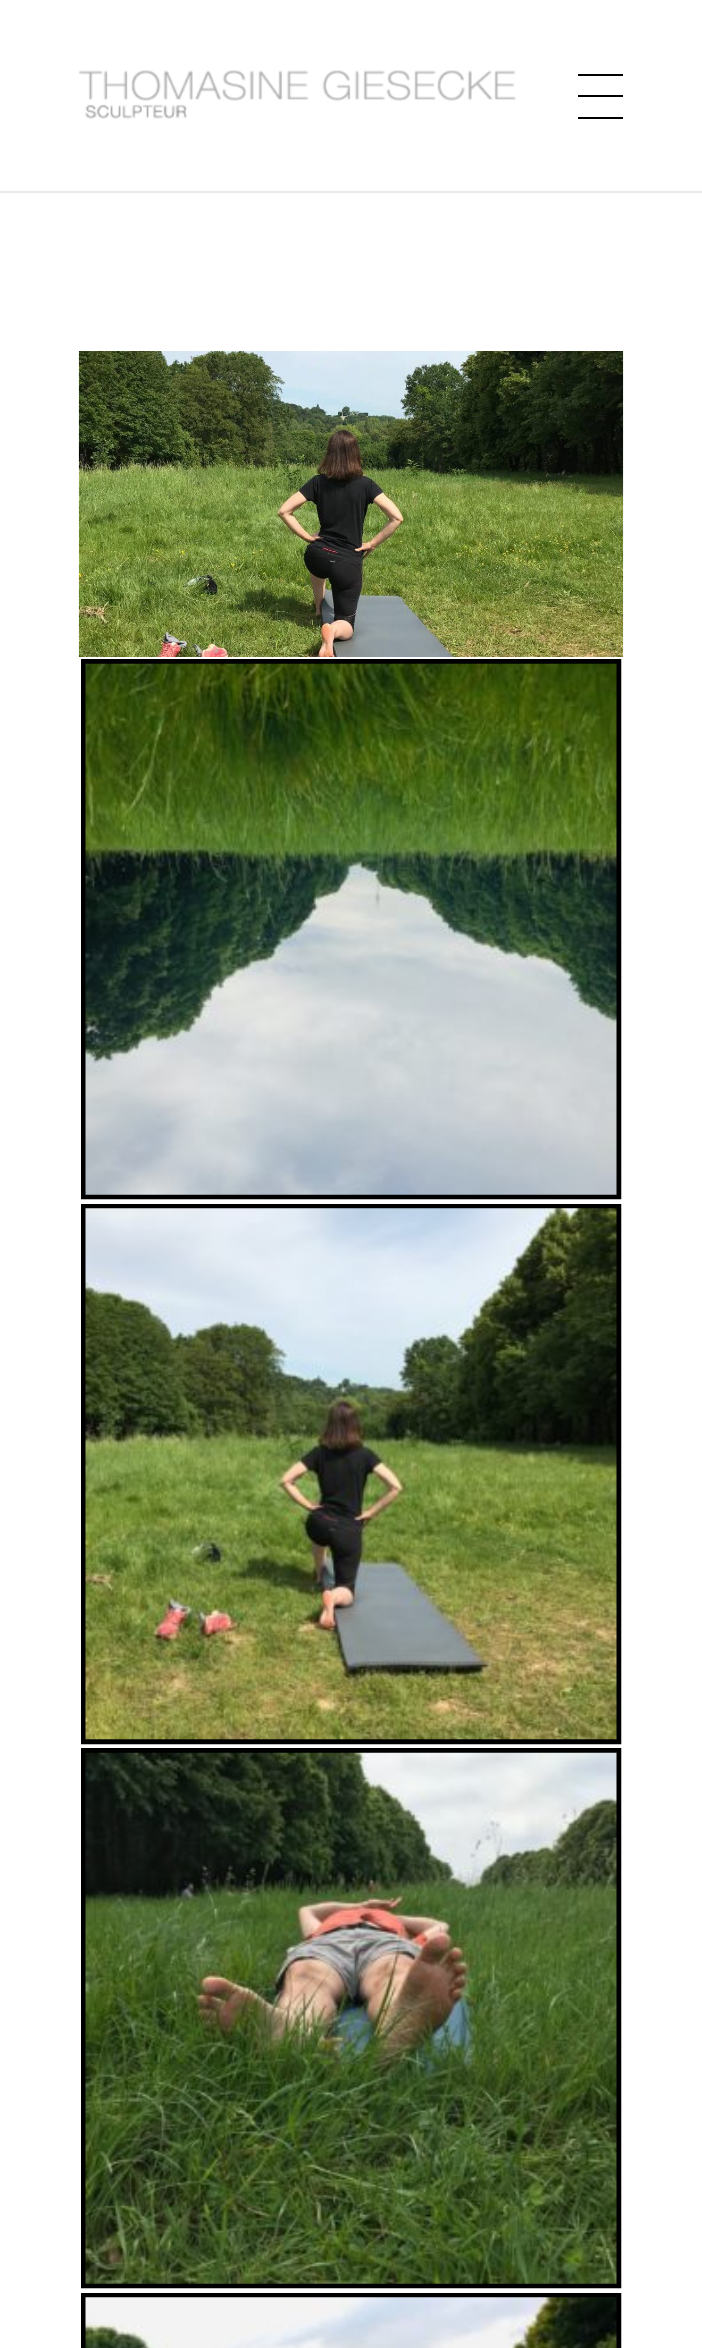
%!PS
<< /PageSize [702 2348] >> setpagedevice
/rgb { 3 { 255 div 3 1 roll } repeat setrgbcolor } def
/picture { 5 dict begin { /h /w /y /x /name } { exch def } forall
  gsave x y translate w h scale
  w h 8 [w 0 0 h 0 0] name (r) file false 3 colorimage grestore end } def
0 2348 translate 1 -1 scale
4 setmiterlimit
255 255 255 rgb
0 0 702 2348 rectfill
234 234 234 rgb
0 191 702 2 rectfill
(img/1.rgb) 78 70 438 49 picture
[
  [578 74 45 2 0 0 0]
  [578 95 45 2 0 0 0]
  [578 117 45 2 0 0 0]
] { aload pop rgb rectfill } forall
(img/2.rgb) 78 351 546 306 picture
5 setlinewidth
83.5 661.5 535 535 rectstroke
(img/3.rgb) 85 663 532 532 picture
83.5 1206.5 535 535 rectstroke
(img/4.rgb) 85 1208 532 532 picture
83.5 1750.5 535 535 rectstroke
(img/5.rgb) 85 1752 532 532 picture
83.5 2295.5 535 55 rectstroke
(img/6.rgb) 85 2297 532 51 picture
showpage
